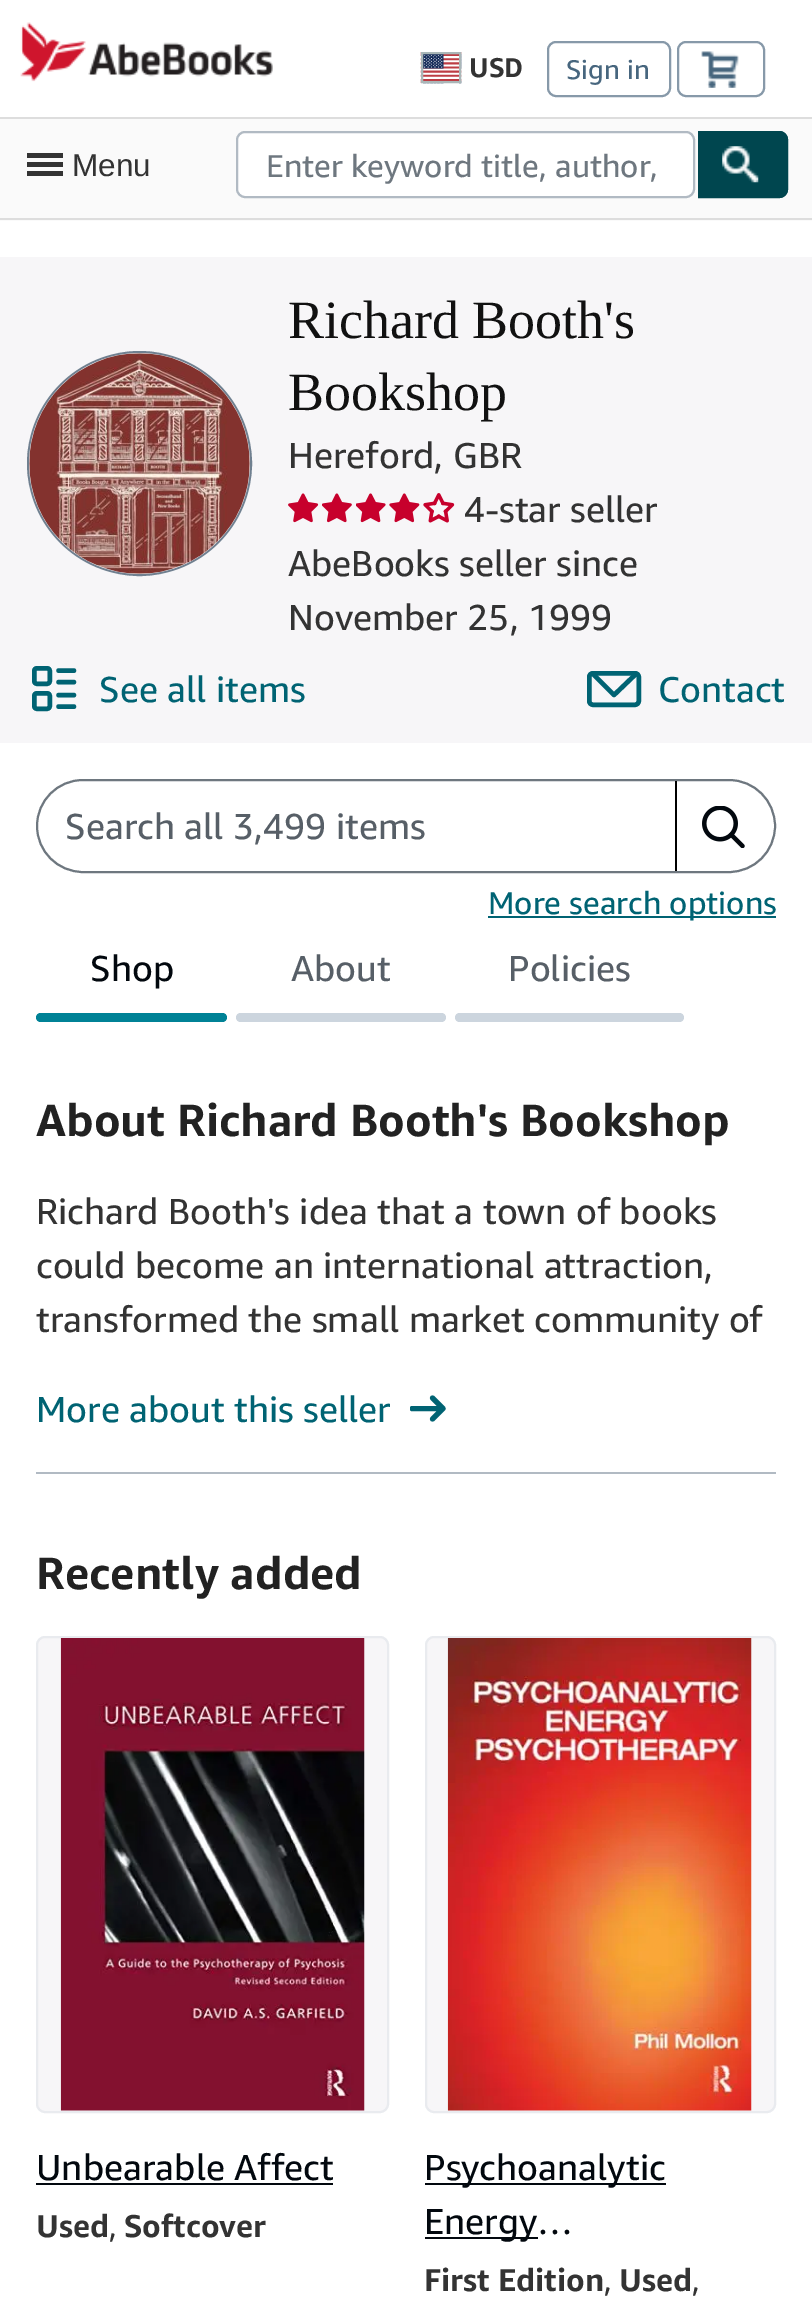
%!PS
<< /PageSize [812 2301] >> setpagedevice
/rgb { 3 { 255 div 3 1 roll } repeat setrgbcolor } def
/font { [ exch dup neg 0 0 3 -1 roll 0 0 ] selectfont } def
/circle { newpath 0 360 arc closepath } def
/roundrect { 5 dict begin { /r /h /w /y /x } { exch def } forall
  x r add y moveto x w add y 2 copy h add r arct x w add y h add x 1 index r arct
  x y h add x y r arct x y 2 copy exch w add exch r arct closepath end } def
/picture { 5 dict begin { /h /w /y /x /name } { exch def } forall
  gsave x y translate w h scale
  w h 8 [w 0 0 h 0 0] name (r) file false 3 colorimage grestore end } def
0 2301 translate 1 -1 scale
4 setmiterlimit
255 255 255 rgb
0 0 812 2301 rectfill
(img/1.rgb) 20 22 253 60 picture
(img/2.rgb) 420 52 42 32 picture
170 183 184 rgb
2 setlinewidth
422 53 38 29 rectstroke
135 153 169 rgb
548 42 122 54 8 roundrect stroke
678 42 86 54 8 roundrect stroke
(img/3.rgb) 701 51 38 37 picture
[
  [0 119 812 102 250 250 250]
  [0 117 812 2 221 221 221]
  [0 218 812 2 221 221 221]
  [27 153 36 5 51 51 51]
  [27 162 36 5 51 51 51]
  [27 171 36 5 51 51 51]
] { aload pop rgb rectfill } forall
255 255 255 rgb
237 132 457 65 8 roundrect gsave fill grestore
177 186 195 rgb
stroke
0 70 79 rgb
698 131 moveto 779 131 lineto 784 131 788 135 788 140 curveto 788 189 lineto 788 194 784 198 779 198 curveto 698 198 lineto closepath fill
(img/4.rgb) 722 146 37 37 picture
699 132 moveto 779 132 lineto 783.5 132 787 135.5 787 140 curveto 787 189 lineto 787 193.5 783.5 197 779 197 curveto 699 197 lineto closepath stroke
247 246 248 rgb
0 257 812 486 rectfill
255 255 255 rgb
139.5 463.5 111.5 circle gsave fill grestore
112 128 144 rgb
stroke
(img/5.rgb) 29 353 221 221 picture
(img/6.rgb) 288 493 31 30 picture
(img/7.rgb) 322 493 30 30 picture
(img/8.rgb) 356 493 30 30 picture
(img/9.rgb) 389 493 31 30 picture
(img/10.rgb) 423 493 32 30 picture
0 99 115 rgb
4.5 setlinewidth
34.25 668.25 15.5 15.5 2.75 roundrect stroke
34.25 693.25 15.5 15.5 2.75 roundrect stroke
1 setlinecap
1 setlinejoin
58.5 670.5 moveto 74 670.5 lineto 58.5 682 moveto 74 682 lineto 58.5 695 moveto 74 695 lineto 58.5 706.5 moveto 74 706.5 lineto stroke
0 setlinecap
0 setlinejoin
589.25 673.25 49.5 31.5 3.75 roundrect stroke
1 setlinejoin
592 673 moveto 614 695 lineto 637 673 lineto stroke
110 119 127 rgb
2 setlinewidth
0 setlinejoin
37 780 738 92 46 roundrect stroke
0 0 0 rgb
675 781 2 90 rectfill
(img/11.rgb) 702 806 43 42 picture
0 99 115 rgb
488 916 288 2 rectfill
0 130 150 rgb
36 1013 191 9 4.5 roundrect fill
204 213 222 rgb
236 1013 210 9 4.5 roundrect fill
455 1013 229 9 4.5 roundrect fill
gsave
410 1391 36 36 rectclip
0 99 115 rgb
5.1 setlinewidth
1 setlinecap
1 setlinejoin
432.5 1419 moveto 443 1408.5 lineto 432.5 1398 lineto 443 1408.5 moveto 412 1408.5 lineto stroke
grestore
177 186 195 rgb
36 1472 740 2 rectfill
247 246 248 rgb
37 1637 351 475 8 roundrect gsave fill grestore
233 235 239 rgb
stroke
(img/12.rgb) 60 1638 305 473 picture
2 8 14 rgb
36 2183 297 2 rectfill
247 246 248 rgb
426 1637 349 475 8 roundrect gsave fill grestore
233 235 239 rgb
stroke
(img/13.rgb) 447 1638 305 473 picture
2 8 14 rgb
425 2183 241 2 rectfill
425 2237 113 2 rectfill
/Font-Bold 27 font
51 51 51 rgb
469 77 moveto (USD) show
/Font-Regular 27 font
71 102 126 rgb
566 79 moveto (Sign in) show
/LiberationSans-Regular 31.5 font
51 51 51 rgb
72 176 moveto (Menu) show
/Font-Regular 31.5 font
110 119 127 rgb
266 177 moveto (Enter keyword title, author,) show
/LiberationSerif-Regular 54 font
17 17 17 rgb
288 338 moveto (Richard Booth's) show
288 410 moveto (Bookshop) show
/Font-Regular 36 font
51 51 51 rgb
[
  [(Hereford, GBR) 288 468]
  [(4-star seller) 464 522]
  [(AbeBooks seller since) 288 576]
  [(November 25, 1999) 288 630]
] { aload pop moveto show } forall
0 99 115 rgb
99 702 moveto (See all items) show
658 702 moveto (Contact) show
87 95 103 rgb
65 839 moveto (Search all 3,499 items) show
/Font-Regular 31.5 font
0 99 115 rgb
488 914 moveto (More search options) show
/Font-Regular 36 font
2 8 14 rgb
90 981 moveto (Shop) show
87 95 103 rgb
291 981 moveto (About) show
508 981 moveto (Policies) show
/Font-Bold 45 font
34 34 34 rgb
36 1136 moveto (About Richard Booth's Bookshop) show
/Font-Regular 36 font
51 51 51 rgb
[
  [(Richard Booth's idea that a town of books) 36 1224]
  [(could become an international attraction,) 36 1278]
  [(transformed the small market community of) 36 1332]
] { aload pop moveto show } forall
0 99 115 rgb
36 1422 moveto (More about this seller) show
/Font-Bold 45 font
34 34 34 rgb
36 1589 moveto (Recently added) show
/Font-Regular 36 font
2 8 14 rgb
36 2180 moveto (Unbearable Affect) show
/Font-Bold 31.5 font
51 51 51 rgb
36 2237 moveto (Used) show
/Font-Regular 31.5 font
109 2237 moveto (,) show
/Font-Bold 31.5 font
124 2237 moveto (Softcover) show
/Font-Regular 36 font
2 8 14 rgb
424 2180 moveto (Psychoanalytic) show
424 2234 moveto (Energy…) show
/Font-Bold 31.5 font
51 51 51 rgb
424 2291 moveto (First Edition) show
/Font-Regular 31.5 font
604 2291 moveto (,) show
/Font-Bold 31.5 font
619 2291 moveto (Used) show
/Font-Regular 31.5 font
692 2291 moveto (,) show
showpage
